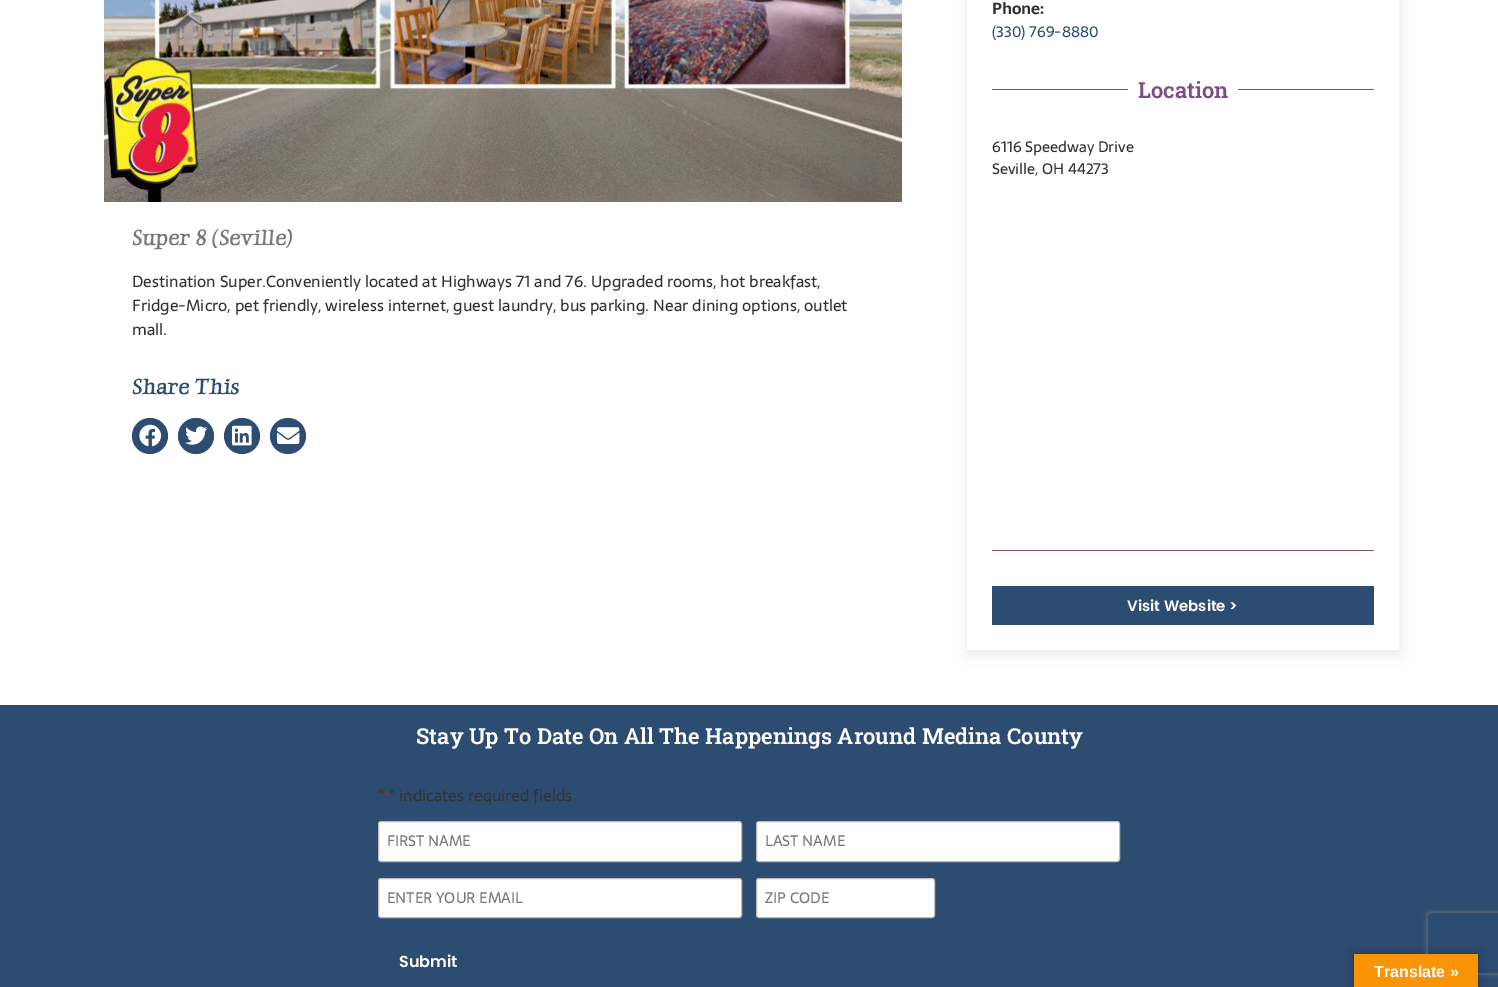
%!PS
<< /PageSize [1498 987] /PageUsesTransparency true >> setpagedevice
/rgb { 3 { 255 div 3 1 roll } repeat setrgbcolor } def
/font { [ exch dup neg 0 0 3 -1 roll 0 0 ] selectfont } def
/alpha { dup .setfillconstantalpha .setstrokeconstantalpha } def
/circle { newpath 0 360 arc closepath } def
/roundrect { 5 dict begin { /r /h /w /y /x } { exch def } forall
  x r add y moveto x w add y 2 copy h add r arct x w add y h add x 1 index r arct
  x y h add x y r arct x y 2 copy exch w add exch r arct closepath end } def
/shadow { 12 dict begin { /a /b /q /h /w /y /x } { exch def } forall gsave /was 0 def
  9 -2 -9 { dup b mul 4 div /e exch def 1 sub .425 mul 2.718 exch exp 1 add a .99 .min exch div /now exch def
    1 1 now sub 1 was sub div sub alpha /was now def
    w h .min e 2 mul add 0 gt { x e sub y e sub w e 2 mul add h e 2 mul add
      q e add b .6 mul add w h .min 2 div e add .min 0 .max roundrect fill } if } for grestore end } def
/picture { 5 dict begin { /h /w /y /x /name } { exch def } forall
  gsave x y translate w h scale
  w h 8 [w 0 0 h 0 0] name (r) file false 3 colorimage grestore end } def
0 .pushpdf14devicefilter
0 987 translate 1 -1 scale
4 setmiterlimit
255 255 255 rgb
0 0 1498 987 rectfill
(img/1.rgb) 104 0 798 202 picture
45 76 113 rgb
150 436 18 circle fill
(img/2.rgb) 139 424 23 23 picture
196 436 18 circle fill
(img/3.rgb) 185 426 23 19 picture
242 436 18 circle fill
(img/4.rgb) 232 425 20 21 picture
288 436 18 circle fill
(img/5.rgb) 277 427 23 17 picture
gsave
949 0 moveto 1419 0 lineto 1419 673 lineto 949 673 lineto closepath 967 -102 moveto 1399 -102 lineto 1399 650 lineto 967 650 lineto closepath eoclip newpath
0 0 0 rgb
968 -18 432 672 0 6 0.09 shadow
grestore
[
  [992 89 136 1 126 76 131]
  [1238 89 136 1 126 76 131]
  [992 550 382 1 126 76 131]
  [992 586 382 39 45 76 113]
  [0 705 1498 282 45 76 113]
] { aload pop rgb rectfill } forall
255 255 255 rgb
378.5 821.5 363 40 2.5 roundrect gsave fill grestore
188 188 188 rgb
stroke
255 255 255 rgb
756.5 821.5 363 40 2.5 roundrect gsave fill grestore
188 188 188 rgb
stroke
255 255 255 rgb
378.5 878.5 363 39 2.5 roundrect gsave fill grestore
188 188 188 rgb
stroke
255 255 255 rgb
756.5 878.5 178 39 2.5 roundrect gsave fill grestore
188 188 188 rgb
stroke
0 0 0 rgb
1354 954 124 33 0 4.5 0.3 shadow
gsave
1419 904 moveto 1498 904 lineto 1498 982 lineto 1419 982 lineto closepath 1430 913 moveto 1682 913 lineto 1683 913 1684 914 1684 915 curveto 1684 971 lineto 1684 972 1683 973 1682 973 curveto 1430 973 lineto 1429 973 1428 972 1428 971 curveto 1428 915 lineto 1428 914 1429 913 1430 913 curveto closepath eoclip newpath
128 128 128 rgb
1428 913 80 60 2 2.5 1 shadow
grestore
248 148 6 rgb
1354 954 124 33 rectfill
/LuxuriousRoman-Bold 22 font
117 119 121 rgb
132 245 moveto (Super 8 \(Seville\)) show
/Sarala-Regular 16 font
51 51 51 rgb
[
  [(Destination Super.Conveniently located at Highways 71 and 76. Upgraded rooms, hot breakfast,) 132 287]
  [(Fridge-Micro, pet friendly, wireless internet, guest laundry, bus parking. Near dining options, outlet) 132 311]
  [(mall.) 132 335]
] { aload pop moveto show } forall
/LuxuriousRoman-Bold 22 font
45 76 113 rgb
132 394 moveto (Share This) show
/Sarala-Bold 16 font
51 51 51 rgb
992 14 moveto (Phone:) show
/Sarala-Regular 15 font
45 76 113 rgb
992 37 moveto (\(330\) 769-8880) show
/RobotoSlab-SemiBold 22 font
126 76 131 rgb
1138 98 moveto (Location) show
/Sarala-Regular 15 font
51 51 51 rgb
992 152 moveto (6116 Speedway Drive) show
992 174 moveto (Seville, OH 44273) show
/Poppins-SemiBold 15 font
255 255 255 rgb
1127 611 moveto (Visit Website >) show
/RobotoSlab-SemiBold 22 font
416 744 moveto (Stay Up To Date On All The Happenings Around Medina County) show
/Sarala-Regular 16 font
51 51 51 rgb
378 801 moveto (") show
/Sarala-Regular 13 font
192 43 10 rgb
384 801 moveto (*) show
/Sarala-Regular 16 font
51 51 51 rgb
389 801 moveto (" indicates required fields) show
/Sarala-Regular 15 font
117 119 121 rgb
[
  [(FIRST NAME) 387 846]
  [(LAST NAME) 765 846]
  [(ENTER YOUR EMAIL) 387 903]
  [(ZIP CODE) 765 903]
] { aload pop moveto show } forall
/Poppins-SemiBold 16 font
255 255 255 rgb
399 967 moveto (Submit) show
/LiberationSans-Bold 16 font
1374 977 moveto (Translate ») show
.poppdf14devicefilter showpage
